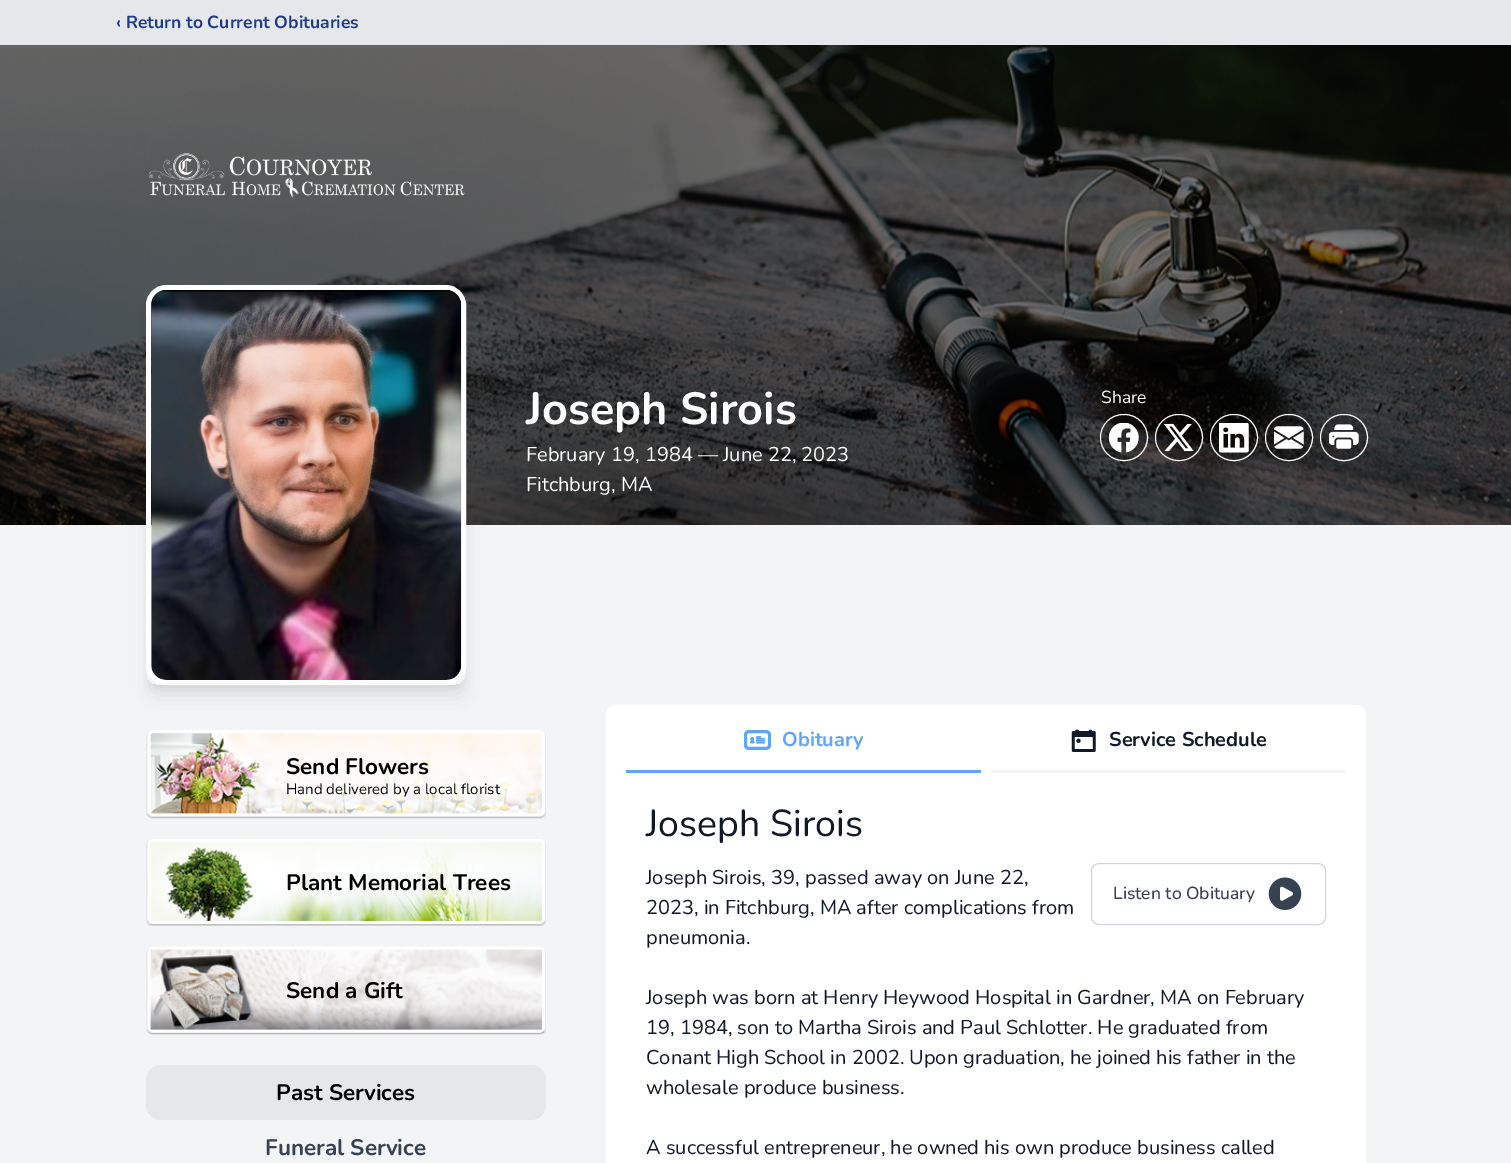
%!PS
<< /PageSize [1511 1163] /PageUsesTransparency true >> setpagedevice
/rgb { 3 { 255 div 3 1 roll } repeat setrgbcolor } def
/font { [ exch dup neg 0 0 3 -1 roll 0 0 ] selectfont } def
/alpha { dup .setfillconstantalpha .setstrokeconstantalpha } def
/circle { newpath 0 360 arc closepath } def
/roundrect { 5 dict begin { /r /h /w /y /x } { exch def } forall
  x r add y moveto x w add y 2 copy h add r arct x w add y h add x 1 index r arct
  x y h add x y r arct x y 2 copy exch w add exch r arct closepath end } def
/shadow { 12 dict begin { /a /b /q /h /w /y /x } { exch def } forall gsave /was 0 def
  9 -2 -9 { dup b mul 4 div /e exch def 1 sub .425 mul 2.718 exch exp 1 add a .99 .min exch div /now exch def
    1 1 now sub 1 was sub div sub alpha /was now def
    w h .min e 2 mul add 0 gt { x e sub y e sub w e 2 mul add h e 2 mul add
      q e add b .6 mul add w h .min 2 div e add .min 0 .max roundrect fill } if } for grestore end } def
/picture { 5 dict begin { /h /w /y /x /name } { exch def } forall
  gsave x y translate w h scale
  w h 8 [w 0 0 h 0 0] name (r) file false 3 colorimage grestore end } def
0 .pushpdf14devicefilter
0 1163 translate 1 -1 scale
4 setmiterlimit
243 244 246 rgb
0 0 1511 1163 rectfill
229 231 235 rgb
0 0 1511 45 rectfill
(img/1.rgb) 0 45 1511 480 picture
(img/2.rgb) 148 153 317 45 picture
gsave
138 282 moveto 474 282 lineto 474 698 lineto 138 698 lineto closepath 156 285 moveto 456 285 lineto 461.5 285 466 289.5 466 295 curveto 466 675 lineto 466 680.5 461.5 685 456 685 curveto 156 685 lineto 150.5 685 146 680.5 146 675 curveto 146 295 lineto 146 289.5 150.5 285 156 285 curveto closepath eoclip newpath
0 0 0 rgb
151 295 310 390 5 4 0.1 shadow
grestore
gsave
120 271 moveto 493 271 lineto 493 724 lineto 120 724 lineto closepath 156 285 moveto 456 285 lineto 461.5 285 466 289.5 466 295 curveto 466 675 lineto 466 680.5 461.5 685 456 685 curveto 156 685 lineto 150.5 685 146 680.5 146 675 curveto 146 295 lineto 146 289.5 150.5 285 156 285 curveto closepath eoclip newpath
0 0 0 rgb
150 301 313 393 6 9.5 0.1 shadow
grestore
255 255 255 rgb
5 setlinewidth
148.5 287.5 315 395 17.5 roundrect stroke
(img/3.rgb) 151 290 311 390 picture
1 setlinewidth
1100.5 414.5 47 46 23 roundrect stroke
0.2 alpha
0 0 0 rgb
1123.5 437.5 22.5 circle fill
1 alpha
(img/4.rgb) 1109 423 30 30 picture
255 255 255 rgb
1155.5 414.5 47 46 23 roundrect stroke
0.2 alpha
0 0 0 rgb
1178.5 437.5 22.5 circle fill
1 alpha
(img/5.rgb) 1164 423 30 29 picture
255 255 255 rgb
1210.5 414.5 47 46 23 roundrect stroke
0.2 alpha
0 0 0 rgb
1233.5 437.5 22.5 circle fill
1 alpha
(img/6.rgb) 1219 423 30 30 picture
255 255 255 rgb
1265.5 414.5 47 46 23 roundrect stroke
0.2 alpha
0 0 0 rgb
1288.5 437.5 22.5 circle fill
1 alpha
(img/7.rgb) 1274 426 30 23 picture
255 255 255 rgb
1320.5 414.5 47 46 23 roundrect stroke
0.2 alpha
0 0 0 rgb
1343.5 437.5 22.5 circle fill
1 alpha
(img/8.rgb) 1329 424 30 25 picture
(img/9.rgb) 146 730 400 89 picture
(img/10.rgb) 146 839 400 87 picture
(img/11.rgb) 146 946 400 89 picture
229 231 235 rgb
146 1065 400 55 15 roundrect fill
255 255 255 rgb
606 705 760 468 10 roundrect fill
96 165 250 rgb
626 770 355 3 rectfill
(img/12.rgb) 744 730 27 20 picture
243 244 246 rgb
991 770 355 3 rectfill
(img/13.rgb) 1071 729 25 23 picture
209 213 219 rgb
1091.5 863.5 234 61 7.5 roundrect stroke
(img/14.rgb) 1268 877 34 33 picture
/Nunito-Bold 17.5 font
30 58 138 rgb
116 28 moveto (‹ Return to Current Obituaries) show
/Nunito-Bold 45 font
255 255 255 rgb
526 424 moveto (Joseph Sirois) show
/Nunito-Regular 20 font
526 461 moveto (February 19, 1984 — June 22, 2023) show
526 491 moveto (Fitchburg, MA) show
/Nunito-Regular 17.5 font
1101 403 moveto (Share) show
/Nunito-Bold 22.5 font
0 0 0 rgb
286 774 moveto (Send Flowers) show
/Nunito-Regular 15 font
286 794 moveto (Hand delivered by a local florist) show
/Nunito-Bold 22.5 font
[
  [(Plant Memorial Trees) 286 890]
  [(Send a Gift) 286 998]
  [(Past Services) 276 1100]
] { aload pop moveto show } forall
55 65 81 rgb
265 1155 moveto (Funeral Service) show
/Nunito-Bold 20 font
96 165 250 rgb
782 746 moveto (Obituary) show
17 24 39 rgb
1109 746 moveto (Service Schedule) show
/Nunito-Regular 37.5 font
646 836 moveto (Joseph Sirois) show
/Nunito-Regular 20 font
[
  [(Joseph Sirois, 39, passed away on June 22,) 646 884]
  [(2023, in Fitchburg, MA after complications from) 646 914]
  [(pneumonia.) 646 944]
  [(Joseph was born at Henry Heywood Hospital in Gardner, MA on February) 646 1004]
  [(19, 1984, son to Martha Sirois and Paul Schlotter. He graduated from) 646 1034]
  [(Conant High School in 2002. Upon graduation, he joined his father in the) 646 1064]
  [(wholesale produce business.) 646 1094]
  [(A successful entrepreneur, he owned his own produce business called) 646 1154]
] { aload pop moveto show } forall
/Nunito-Medium 17.5 font
55 65 81 rgb
1113 899 moveto (Listen to Obituary) show
.poppdf14devicefilter showpage
